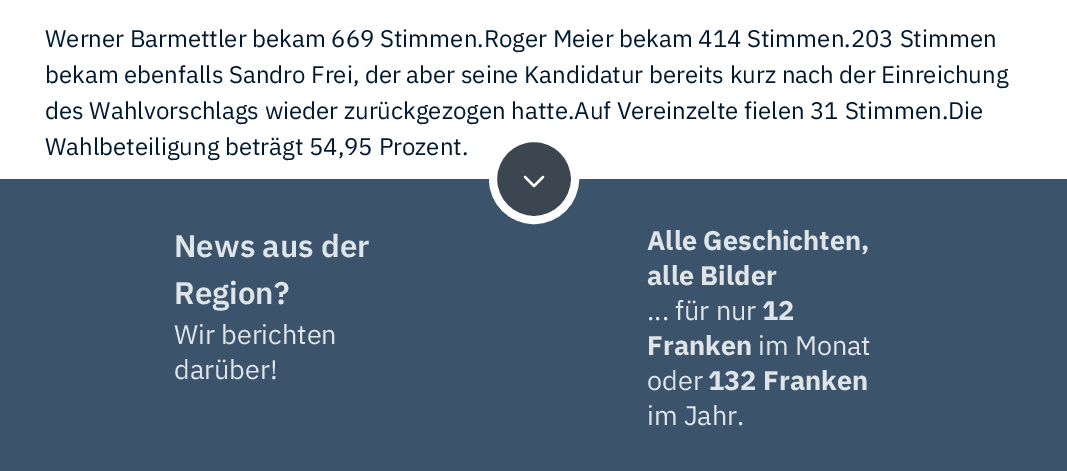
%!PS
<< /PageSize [1067 471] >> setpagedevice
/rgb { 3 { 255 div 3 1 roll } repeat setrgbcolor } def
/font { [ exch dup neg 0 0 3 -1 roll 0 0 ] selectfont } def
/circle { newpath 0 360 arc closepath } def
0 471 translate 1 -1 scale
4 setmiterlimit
255 255 255 rgb
0 0 1067 471 rectfill
60 84 107 rgb
0 179 1067 292 rectfill
60 70 80 rgb
534 179 41 circle gsave fill grestore
255 255 255 rgb
8 setlinewidth
stroke
2.2 setlinewidth
1 setlinecap
1 setlinejoin
525 177 moveto 534 186 lineto 543 177 lineto stroke
/IBMPlexSans-Regular 24 font
2 25 48 rgb
[
  [(Werner Barmettler bekam 669 Stimmen.Roger Meier bekam 414 Stimmen.203 Stimmen) 45 47]
  [(bekam ebenfalls Sandro Frei, der aber seine Kandidatur bereits kurz nach der Einreichung) 45 83]
  [(des Wahlvorschlags wieder zurückgezogen hatte.Auf Vereinzelte fielen 31 Stimmen.Die) 45 119]
  [(Wahlbeteiligung beträgt 54,95 Prozent.) 45 155]
] { aload pop moveto show } forall
/IBMPlexSans-SemiBold 31.25 font
223 228 233 rgb
174 257 moveto (News aus der) show
174 304 moveto (Region?) show
/IBMPlexSans-Regular 27 font
174 344 moveto (Wir berichten) show
174 379 moveto (darüber!) show
/IBMPlexSans-Bold 27 font
647 250 moveto (Alle Geschichten,) show
647 285 moveto (alle Bilder) show
/IBMPlexSans-Regular 27 font
647 320 moveto (... für nur) show
/IBMPlexSans-Bold 27 font
762 320 moveto (12) show
647 355 moveto (Franken) show
/IBMPlexSans-Regular 27 font
758 355 moveto (im Monat) show
647 390 moveto (oder) show
/IBMPlexSans-Bold 27 font
708 390 moveto (132 Franken) show
/IBMPlexSans-Regular 27 font
647 425 moveto (im Jahr.) show
showpage
